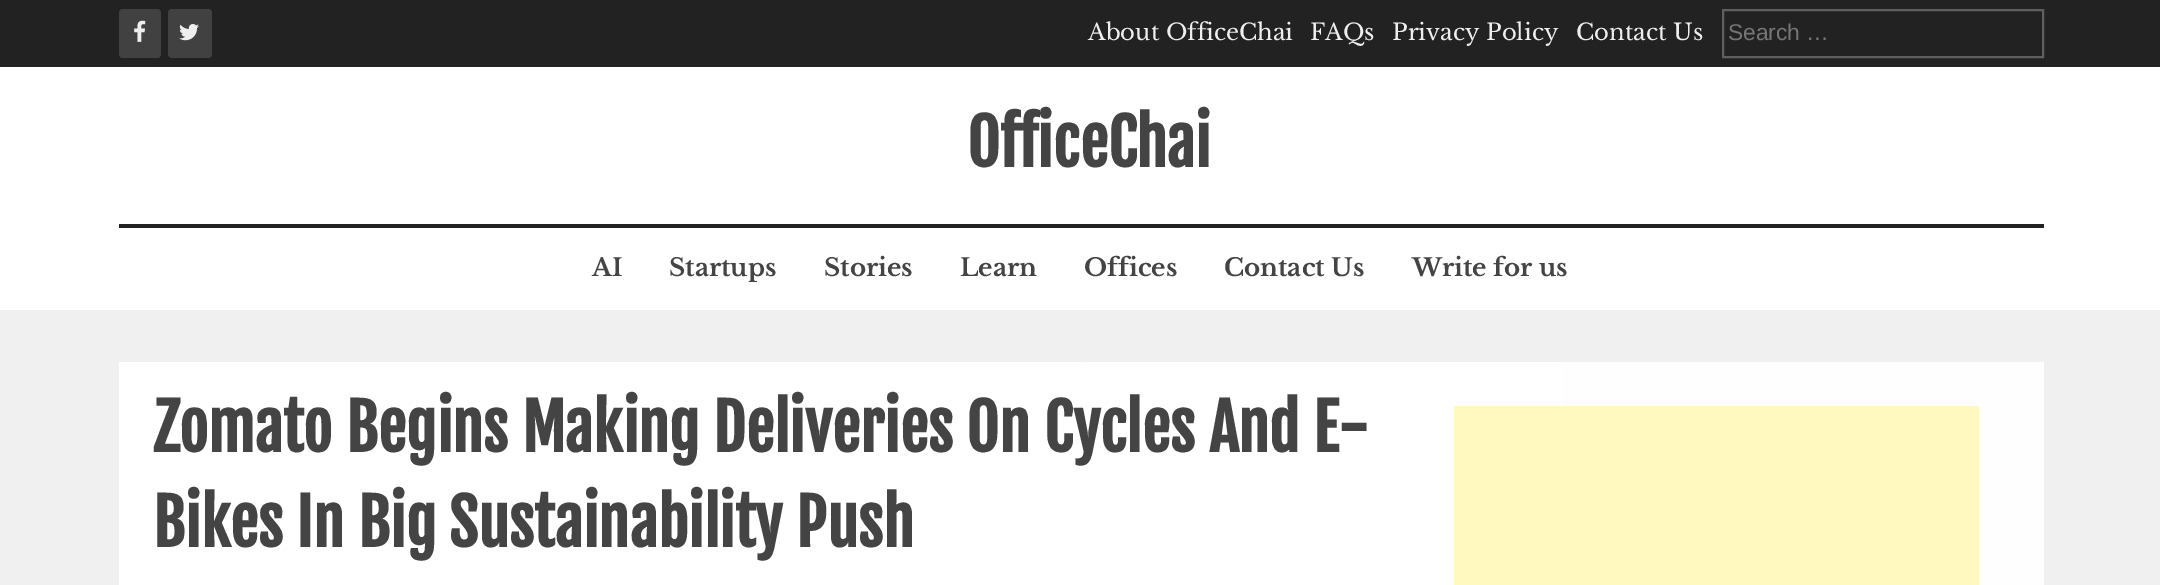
%!PS
<< /PageSize [2160 585] >> setpagedevice
/rgb { 3 { 255 div 3 1 roll } repeat setrgbcolor } def
/font { [ exch dup neg 0 0 3 -1 roll 0 0 ] selectfont } def
/roundrect { 5 dict begin { /r /h /w /y /x } { exch def } forall
  x r add y moveto x w add y 2 copy h add r arct x w add y h add x 1 index r arct
  x y h add x y r arct x y 2 copy exch w add exch r arct closepath end } def
/picture { 5 dict begin { /h /w /y /x /name } { exch def } forall
  gsave x y translate w h scale
  w h 8 [w 0 0 h 0 0] name (r) file false 3 colorimage grestore end } def
0 585 translate 1 -1 scale
4 setmiterlimit
240 240 240 rgb
0 0 2160 585 rectfill
34 34 34 rgb
0 0 2160 67 rectfill
65 65 65 rgb
119 9 42 49 4 roundrect fill
(img/1.rgb) 134 20 12 22 picture
168 9 44 49 4 roundrect fill
(img/2.rgb) 179 24 20 17 picture
95 95 95 rgb
2 setlinewidth
1723 10 320 47 rectstroke
255 255 255 rgb
0 67 2160 243 rectfill
34 34 34 rgb
119 224 1925 4 rectfill
gsave 119 362 moveto 2044 362 lineto 2044 585 lineto 119 585 lineto closepath clip newpath
<< /ShadingType 2 /ColorSpace /DeviceRGB /Coords [119 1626 2044 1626] /Extend [true true] /Function << /FunctionType 3 /Domain [0 1] /Functions [<< /FunctionType 2 /Domain [0 1] /C0 [1 1 1] /C1 [1 1 1] /N 1 >> << /FunctionType 2 /Domain [0 1] /C0 [1 1 1] /C1 [0.996 0.996 0.996] /N 1 >>] /Bounds [0.5] /Encode [0 1 0 1] >> >> shfill grestore
255 249 192 rgb
1454 406 525 179 rectfill
/LibreBaskerville-Regular 22.75 font
238 238 238 rgb
[
  [(About OfficeChai) 1088 40]
  [(FAQs) 1310 40]
  [(Privacy Policy) 1392 40]
  [(Contact Us) 1576 40]
] { aload pop moveto show } forall
/LiberationSans-Regular 22.75 font
117 117 117 rgb
1728 40 moveto (Search …) show
/FjallaOne-Bold 63 font
68 68 68 rgb
967 167 moveto (OfficeChai) show
/LibreBaskerville-Bold 24.5 font
[
  [(AI) 592 276]
  [(Startups) 669 276]
  [(Stories) 824 276]
  [(Learn) 960 276]
  [(Offices) 1084 276]
  [(Contact Us) 1224 276]
  [(Write for us) 1412 276]
] { aload pop moveto show } forall
/FjallaOne-Bold 63 font
153 452 moveto (Zomato Begins Making Deliveries On Cycles And E-) show
153 547 moveto (Bikes In Big Sustainability Push) show
showpage
